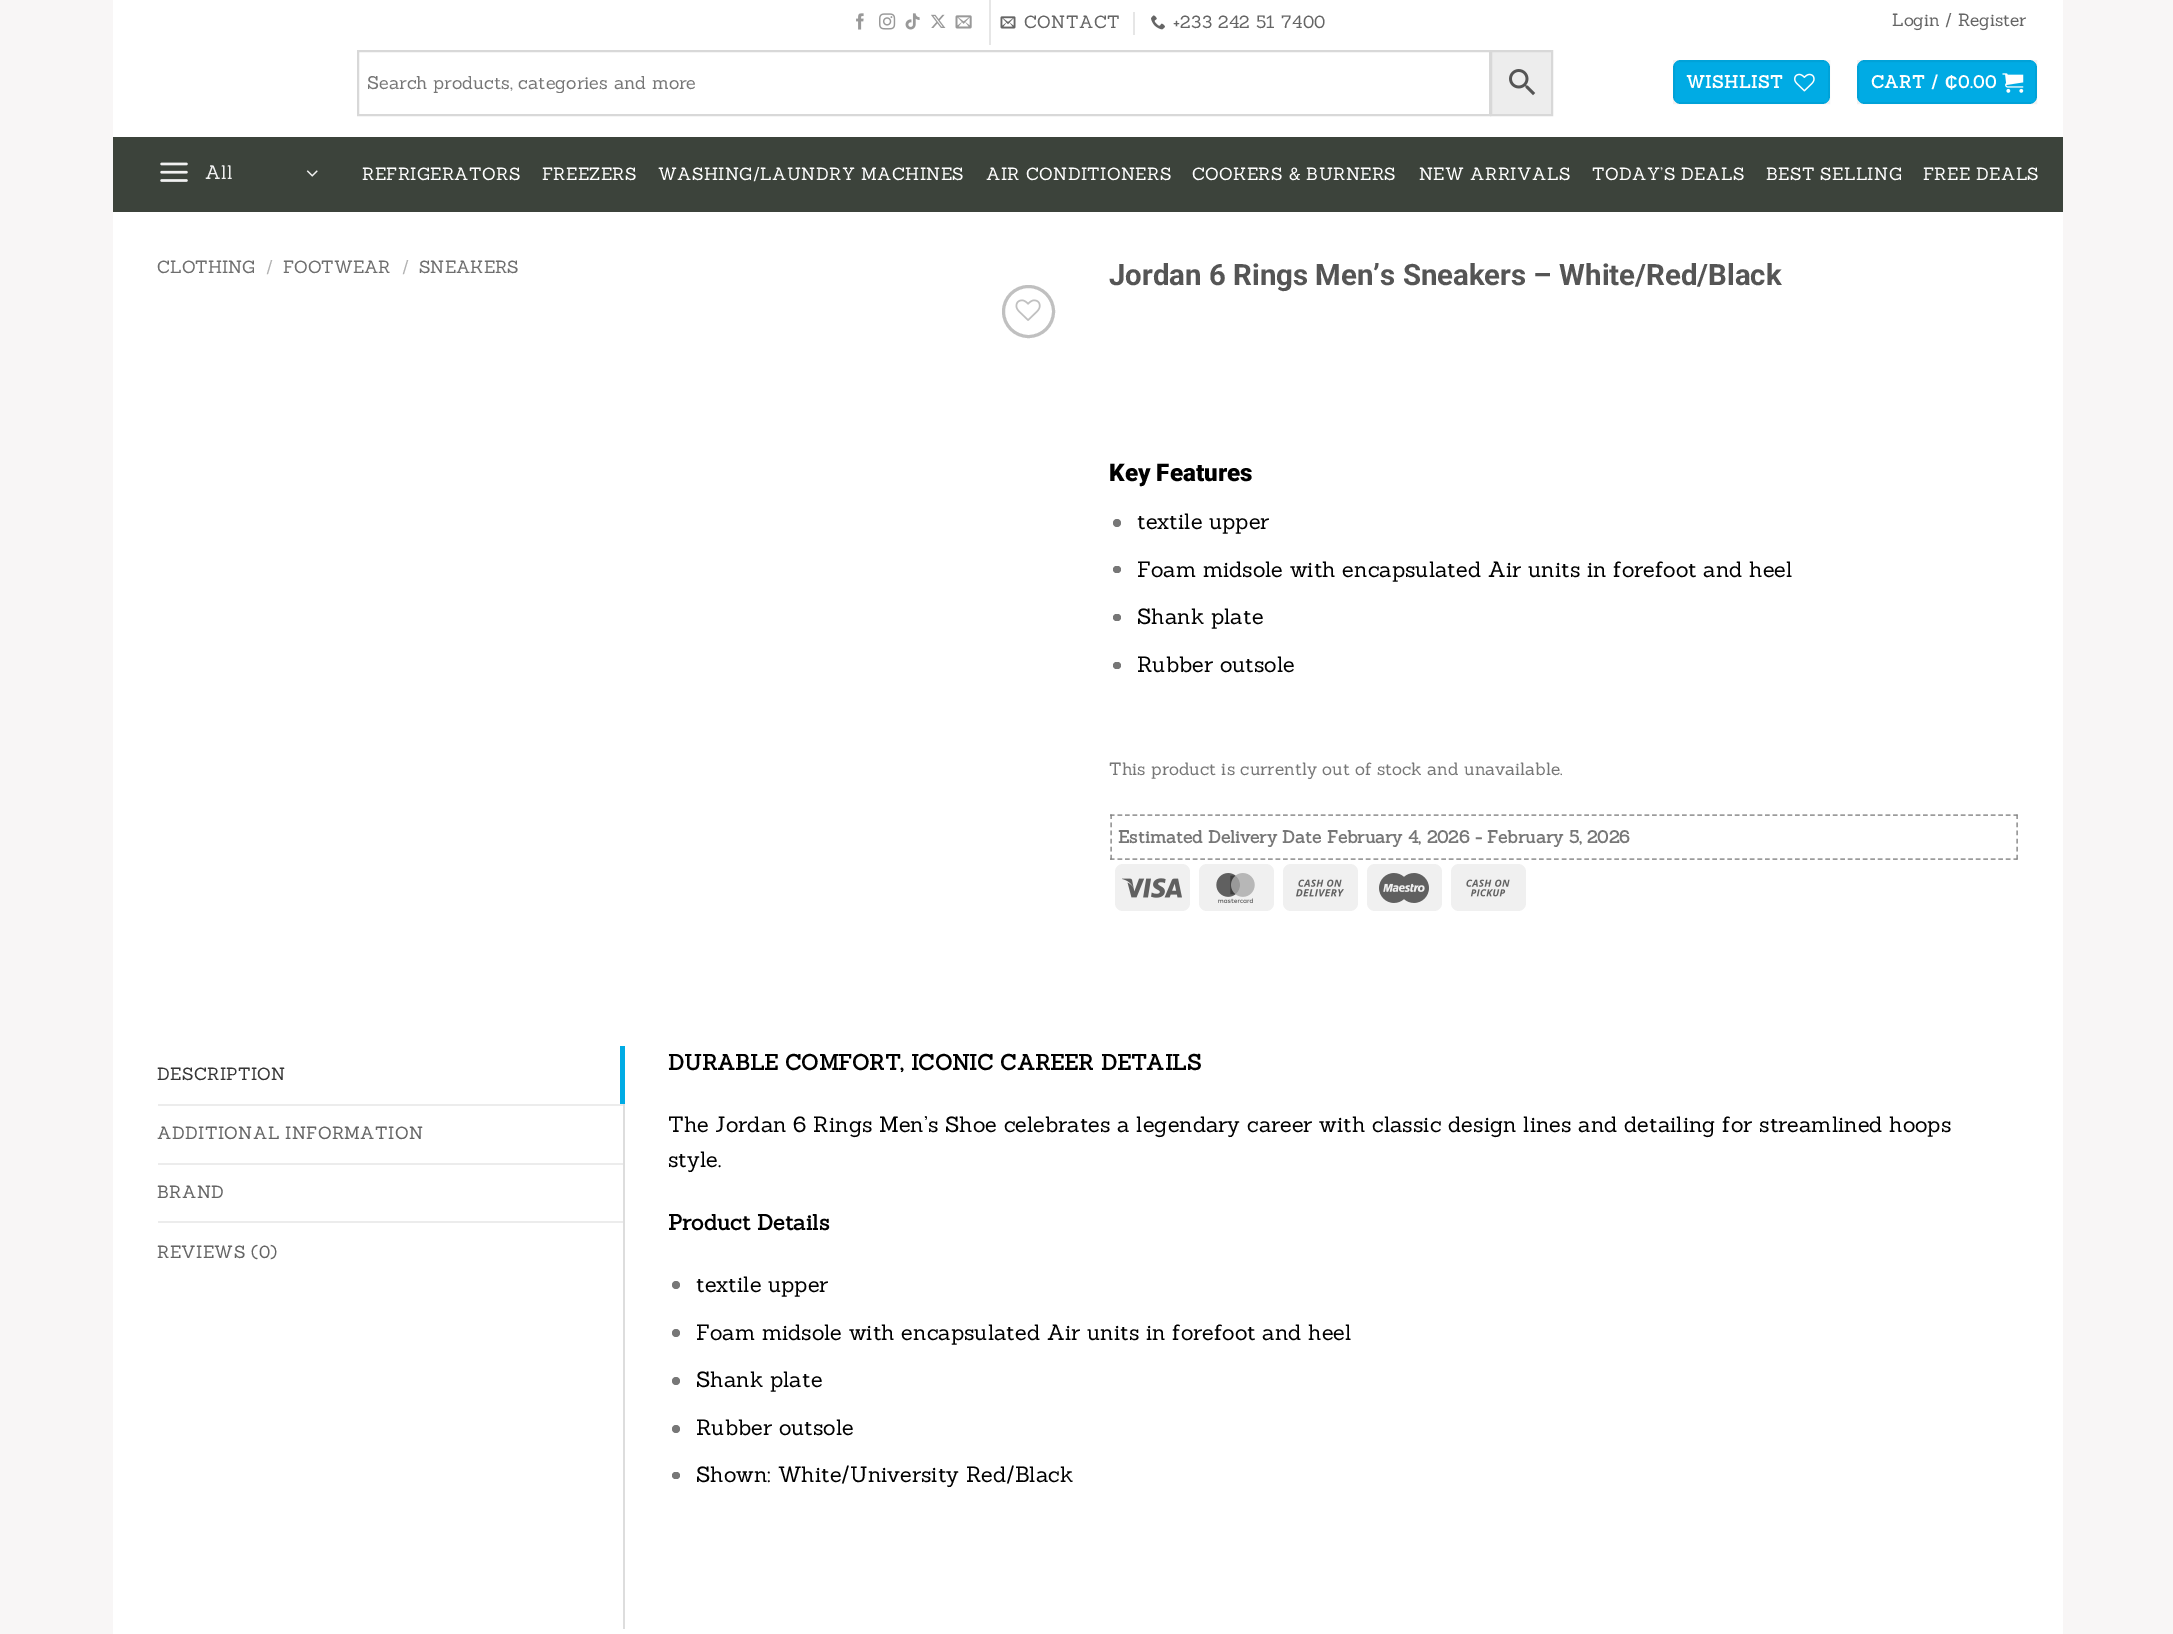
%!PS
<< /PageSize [2173 1634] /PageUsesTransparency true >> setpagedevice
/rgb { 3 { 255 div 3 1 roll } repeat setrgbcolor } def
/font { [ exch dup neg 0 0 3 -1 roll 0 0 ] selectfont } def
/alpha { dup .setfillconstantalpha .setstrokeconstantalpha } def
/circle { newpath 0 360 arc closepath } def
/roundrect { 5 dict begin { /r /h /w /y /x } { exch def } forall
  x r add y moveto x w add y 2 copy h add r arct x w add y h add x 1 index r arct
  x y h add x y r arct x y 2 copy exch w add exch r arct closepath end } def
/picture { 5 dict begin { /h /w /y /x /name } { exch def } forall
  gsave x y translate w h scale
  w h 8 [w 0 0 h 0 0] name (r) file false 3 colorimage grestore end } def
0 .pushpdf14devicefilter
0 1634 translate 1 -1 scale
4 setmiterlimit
248 246 246 rgb
0 0 2173 1634 rectfill
255 255 255 rgb
113 0 1950 1634 rectfill
(img/1.rgb) 856 13 8 17 picture
(img/2.rgb) 879 13 17 17 picture
(img/3.rgb) 905 13 15 17 picture
(img/4.rgb) 931 14 15 14 picture
(img/5.rgb) 955 15 17 14 picture
230 230 230 rgb
989 0 2 45 rectfill
(img/6.rgb) 1000 16 16 13 picture
1133 12 2 23 rectfill
(img/7.rgb) 1151 15 14 15 picture
237 237 237 rgb
1491 51 moveto 1552 51 lineto 1552 115 lineto 1491 115 lineto closepath gsave fill grestore
216 216 216 rgb
2 setlinewidth
stroke
358 51 1132 64 rectstroke
(img/8.rgb) 1509 69 27 27 picture
0 171 228 rgb
1673 60 157 44 8 roundrect fill
0.05 alpha
0 0 0 rgb
1674 61 155 42 rectstroke
1 alpha
(img/9.rgb) 1794 73 21 19 picture
0 171 228 rgb
1857 60 180 44 8 roundrect fill
0.05 alpha
0 0 0 rgb
1858 61 178 42 rectstroke
1 alpha
(img/10.rgb) 2002 73 22 20 picture
60 67 59 rgb
113 137 1950 75 rectfill
(img/11.rgb) 160 162 28 20 picture
(img/12.rgb) 306 170 12 7 picture
192 192 192 rgb
3 setlinewidth
1028.5 311.5 25 circle stroke
(img/13.rgb) 1015 299 26 22 picture
119 119 119 rgb
1117 523 4 circle fill
1113 566 8 7 3.5 roundrect fill
1113 614 8 7 3.5 roundrect fill
1113 662 8 7 3.5 roundrect fill
155 155 155 rgb
1.5 setlinewidth
[4.5 3.03] 0 setdash
1110 815 moveto 2017.5 815 lineto stroke
0.79 alpha
128 128 128 rgb
[4.5 3.6] 0 setdash
2017 814.5 moveto 2017 859.5 lineto stroke
[4.5 3.03] 0 setdash
1110 859 moveto 2017.5 859 lineto stroke
[4.5 3.6] 0 setdash
1111 814.5 moveto 1111 859.5 lineto stroke
1 alpha
240 240 240 rgb
1115 864 75 47 8 roundrect fill
(img/14.rgb) 1122 878 60 20 picture
1199 864 75 47 8 roundrect fill
(img/15.rgb) 1216 873 39 30 picture
1283 864 75 47 8 roundrect fill
(img/16.rgb) 1296 879 48 18 picture
1367 864 75 47 8 roundrect fill
(img/17.rgb) 1379 873 50 30 picture
1451 864 75 47 8 roundrect fill
(img/18.rgb) 1466 879 44 18 picture
[
  [620 1046 5 58 0 171 228]
  [158 1104 465 2 236 236 236]
  [158 1163 465 2 236 236 236]
  [158 1221 465 2 236 236 236]
  [623 1104 2 525 221 221 221]
] { aload pop rgb rectfill } forall
119 119 119 rgb
676 1285 4 circle fill
676 1333 4 circle fill
676 1381 4 circle fill
676 1429 4 circle fill
672 1472 8 7 3.5 roundrect fill
/Sanchez-Regular 17.25 font
101 101 101 rgb
1024 28 moveto 0.35 0 (CONTACT) ashow
1173 28 moveto 0.35 0 (+233 242 51 7400) ashow
1892 26 moveto (Login / Register) show
gsave
368 71 1113 22 rectclip
/Sanchez-Regular 18 font
119 119 119 rgb
367 89 moveto (Search products, categories and more) show
grestore
/Sanchez-Bold 17.25 font
255 255 255 rgb
1686 88 moveto 0.5 0 (WISHLIST) ashow
1871 88 moveto 0.5 0 (CART /) ashow
/LiberationSans-Bold 17.25 font
1945 88 moveto 0.5 0 (₵) ashow
/Sanchez-Bold 17.25 font
1958 88 moveto 0.5 0 (0.00) ashow
/Sanchez-Regular 19 font
241 241 241 rgb
205 179 moveto (All) show
/Sanchez-Regular 17.25 font
255 255 255 rgb
362 180 moveto 0.35 0 (REFRIGERATORS) ashow
542 180 moveto 0.35 0 (FREEZERS) ashow
658 180 moveto 0.35 0 (WASHING/LAUNDRY MACHINES) ashow
986 180 moveto 0.35 0 (AIR CONDITIONERS) ashow
1192 180 moveto 0.35 0 (COOKERS & BURNERS) ashow
1419 180 moveto 0.35 0 (NEW ARRIVALS) ashow
1592 180 moveto 0.35 0 (TODAY’S DEALS) ashow
1766 180 moveto 0.35 0 (BEST SELLING) ashow
1923 180 moveto 0.35 0 (FREE DEALS) ashow
110 110 110 rgb
157 273 moveto (CLOTHING) show
178 178 178 rgb
266 273 moveto (/) show
110 110 110 rgb
283 273 moveto (FOOTWEAR) show
178 178 178 rgb
402 273 moveto (/) show
110 110 110 rgb
419 273 moveto (SNEAKERS) show
/Roboto-Bold 29.4 font
85 85 85 rgb
1109 285 moveto (Jordan 6 Rings Men’s Sneakers – White/Red/Black) show
/Roboto-Black 24.25 font
0 0 0 rgb
1109 481 moveto (Key Features) show
/Sanchez-Regular 21.6 font
[
  [(textile upper) 1137 529]
  [(Foam midsole with encapsulated Air units in forefoot and heel) 1137 577]
  [(Shank plate) 1137 624]
  [(Rubber outsole) 1137 672]
] { aload pop moveto show } forall
/Sanchez-Regular 17.25 font
119 119 119 rgb
1109 775 moveto (This product is currently out of stock and unavailable.) show
/Sanchez-Bold 17.25 font
1118 843 moveto (Estimated Delivery Date February 4, 2026 - February 5, 2026) show
/Sanchez-Regular 17.25 font
54 54 54 rgb
157 1080 moveto 0.35 0 (DESCRIPTION) ashow
101 101 101 rgb
157 1139 moveto 0.35 0 (ADDITIONAL INFORMATION) ashow
157 1198 moveto 0.35 0 (BRAND) ashow
157 1258 moveto 0.35 0 (REVIEWS \(0\)) ashow
/Sanchez-Bold 21.6 font
0 0 0 rgb
668 1070 moveto (DURABLE COMFORT, ICONIC CAREER DETAILS) show
/Sanchez-Regular 21.6 font
668 1132 moveto (The Jordan 6 Rings Men’s Shoe celebrates a legendary career with classic design lines and detailing for streamlined hoops) show
668 1167 moveto (style.) show
/Sanchez-Bold 21.6 font
668 1230 moveto (Product Details) show
/Sanchez-Regular 21.6 font
[
  [(textile upper) 696 1292]
  [(Foam midsole with encapsulated Air units in forefoot and heel) 696 1340]
  [(Shank plate) 696 1387]
  [(Rubber outsole) 696 1435]
  [(Shown: White/University Red/Black) 696 1482]
] { aload pop moveto show } forall
.poppdf14devicefilter showpage
